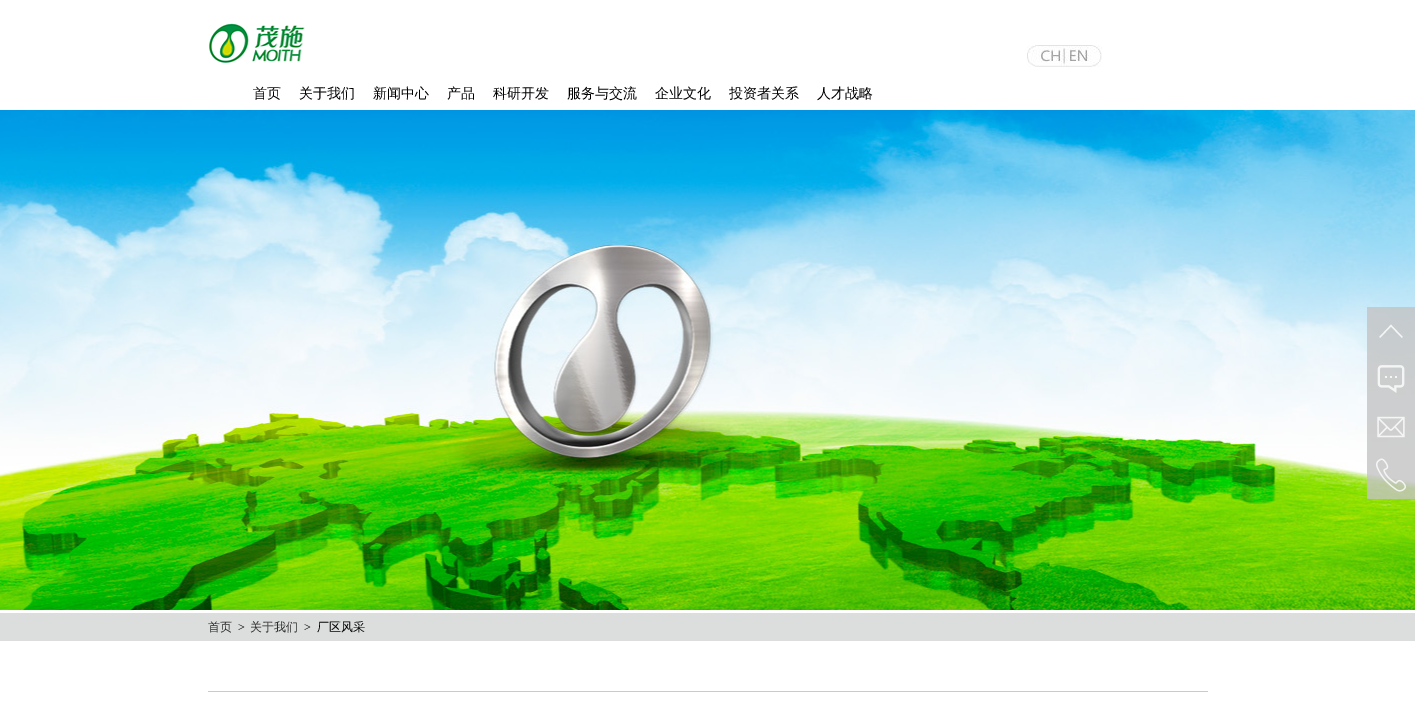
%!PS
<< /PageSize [1415 713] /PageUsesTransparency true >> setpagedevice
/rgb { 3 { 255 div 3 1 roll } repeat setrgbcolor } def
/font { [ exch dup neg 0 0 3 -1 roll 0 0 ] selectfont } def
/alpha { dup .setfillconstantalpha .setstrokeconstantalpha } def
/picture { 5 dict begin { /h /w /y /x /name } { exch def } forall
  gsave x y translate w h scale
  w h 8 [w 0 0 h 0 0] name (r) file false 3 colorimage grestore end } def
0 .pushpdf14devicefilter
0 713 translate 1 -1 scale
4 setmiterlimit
255 255 255 rgb
0 0 1415 713 rectfill
(img/1.rgb) 209 23 96 40 picture
(img/2.rgb) 1027 45 75 22 picture
(img/3.rgb) 0 110 1415 500 picture
0.8 alpha
195 195 195 rgb
1367 307 48 48 rectfill
1 alpha
(img/4.rgb) 1379 324 24 14 picture
0.8 alpha
1367 355 48 48 rectfill
1 alpha
(img/5.rgb) 1377 365 28 28 picture
0.8 alpha
1367 403 48 48 rectfill
1 alpha
(img/6.rgb) 1377 416 28 22 picture
0.8 alpha
1367 451 48 48 rectfill
1 alpha
(img/7.rgb) 1376 458 30 34 picture
220 222 221 rgb
0 613 1415 28 rectfill
233 194 161 rgb
208 691 1000 1 rectfill
/WenQuanYiZenHei-Medium 14 font
0 0 0 rgb
[
  [(首页) 253 98]
  [(关于我们) 299 98]
  [(新闻中心) 373 98]
  [(产品) 447 98]
  [(科研开发) 493 98]
  [(服务与交流) 567 98]
  [(企业文化) 655 98]
  [(投资者关系) 729 98]
  [(人才战略) 817 98]
] { aload pop moveto show } forall
/WenQuanYiZenHei-Medium 12 font
43 43 43 rgb
208 631 moveto (首页) show
/LiberationSerif-Regular 12 font
0 0 0 rgb
238 631 moveto (>) show
/WenQuanYiZenHei-Medium 12 font
43 43 43 rgb
250 631 moveto (关于我们) show
/LiberationSerif-Regular 12 font
0 0 0 rgb
304 631 moveto (>) show
/WenQuanYiZenHei-Medium 12 font
317 631 moveto (厂区风采) show
.poppdf14devicefilter showpage
